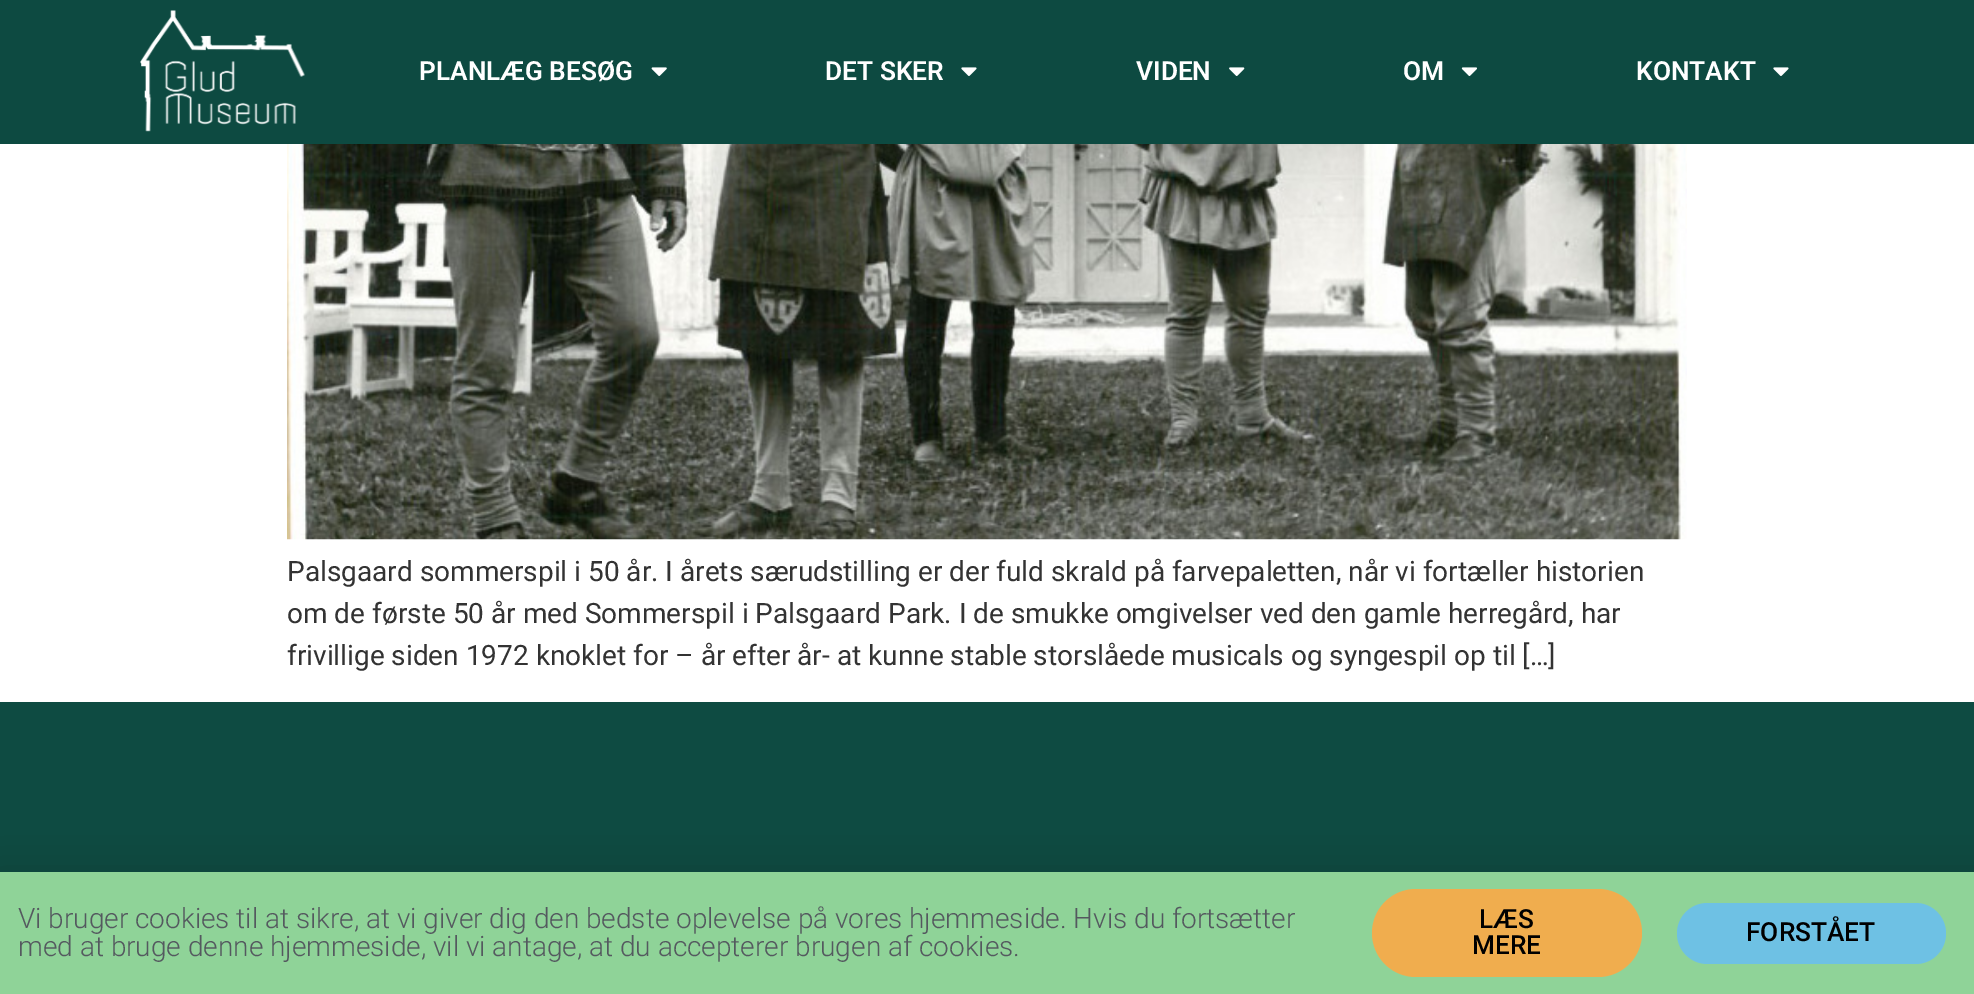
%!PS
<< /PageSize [1974 994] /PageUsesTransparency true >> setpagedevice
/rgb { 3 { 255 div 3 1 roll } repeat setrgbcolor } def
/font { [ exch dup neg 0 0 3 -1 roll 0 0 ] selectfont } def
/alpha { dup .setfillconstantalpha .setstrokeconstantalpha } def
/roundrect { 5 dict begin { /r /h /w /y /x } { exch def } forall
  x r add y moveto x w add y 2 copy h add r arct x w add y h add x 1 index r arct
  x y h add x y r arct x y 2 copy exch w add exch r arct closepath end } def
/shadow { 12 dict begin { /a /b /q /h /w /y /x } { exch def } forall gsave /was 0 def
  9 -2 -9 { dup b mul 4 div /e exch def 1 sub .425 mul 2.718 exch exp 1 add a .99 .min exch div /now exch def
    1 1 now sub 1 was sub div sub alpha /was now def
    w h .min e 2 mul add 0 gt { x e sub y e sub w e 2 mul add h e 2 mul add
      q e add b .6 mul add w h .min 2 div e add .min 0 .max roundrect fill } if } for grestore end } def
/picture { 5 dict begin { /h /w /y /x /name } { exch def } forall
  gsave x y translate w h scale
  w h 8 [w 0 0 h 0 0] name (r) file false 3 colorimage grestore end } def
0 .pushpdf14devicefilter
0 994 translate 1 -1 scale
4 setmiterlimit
255 255 255 rgb
0 0 1974 994 rectfill
13 74 65 rgb
0 0 1974 144 rectfill
(img/1.rgb) 140 10 165 122 picture
(img/2.rgb) 651 67 16 9 picture
(img/3.rgb) 961 67 16 9 picture
(img/4.rgb) 1229 67 16 9 picture
(img/5.rgb) 1461 67 16 9 picture
(img/3.rgb) 1773 67 16 9 picture
(img/6.rgb) 287 144 1400 396 picture
14 75 66 rgb
0 702 1974 170 rectfill
0 0 0 rgb
-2 880 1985 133 0 20 0.2 shadow
143 211 152 rgb
0 872 1974 122 rectfill
240 173 78 rgb
1372 889 270 88 44 roundrect fill
110 193 228 rgb
1677 903 269 61 30.5 roundrect fill
/Roboto-SemiBold 26.25 font
255 255 255 rgb
[
  [(PLANLÆG BESØG) 419 80]
  [(DET SKER) 825 80]
  [(VIDEN) 1136 80]
  [(OM) 1403 80]
  [(KONTAKT) 1636 80]
] { aload pop moveto show } forall
/Roboto-Regular 28 font
51 51 51 rgb
[
  [(Palsgaard sommerspil i 50 år. I årets særudstilling er der fuld skrald på farvepaletten, når vi fortæller historien) 287 581]
  [(om de første 50 år med Sommerspil i Palsgaard Park. I de smukke omgivelser ved den gamle herregård, har) 287 623]
  [(frivillige siden 1972 knoklet for – år efter år- at kunne stable storslåede musicals og syngespil op til […]) 287 665]
] { aload pop moveto show } forall
/Roboto-Light 28 font
84 89 95 rgb
18 928 moveto (Vi bruger cookies til at sikre, at vi giver dig den bedste oplevelse på vores hjemmeside. Hvis du fortsætter) show
18 956 moveto (med at bruge denne hjemmeside, vil vi antage, at du accepterer brugen af cookies.) show
/Roboto-Medium 26.25 font
0 0 0 rgb
[
  [(LÆS) 1479 928]
  [(MERE) 1472 954]
  [(FORSTÅET) 1746 941]
] { aload pop moveto show } forall
.poppdf14devicefilter showpage
